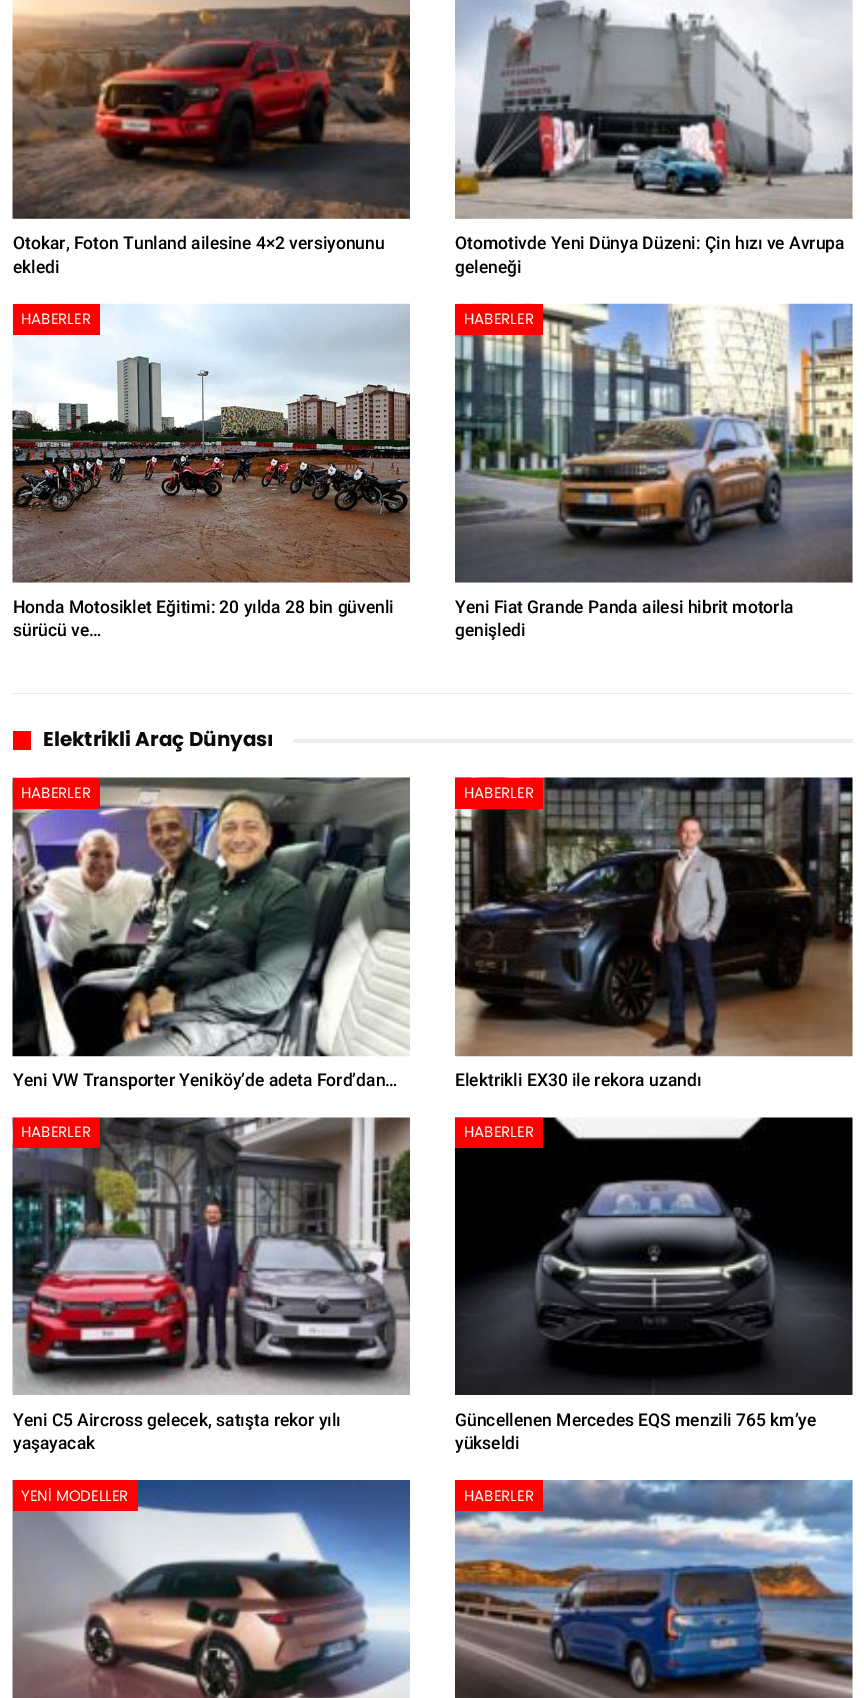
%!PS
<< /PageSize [864 1698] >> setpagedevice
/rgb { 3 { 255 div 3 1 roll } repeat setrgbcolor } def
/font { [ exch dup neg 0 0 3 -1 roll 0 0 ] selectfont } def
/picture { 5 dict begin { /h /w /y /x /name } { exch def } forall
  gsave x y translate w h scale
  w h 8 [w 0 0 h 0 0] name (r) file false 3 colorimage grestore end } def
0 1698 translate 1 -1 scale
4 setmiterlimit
255 255 255 rgb
0 0 864 1698 rectfill
232 232 232 rgb
13 693 840 1 rectfill
(img/1.rgb) 12 0 398 219 picture
245 245 245 rgb
455 0 398 219 rectfill
(img/2.rgb) 455 0 398 219 picture
13 582 397 1 rectfill
(img/3.rgb) 12 303 398 280 picture
255 0 0 rgb
13 304 87 31 rectfill
245 245 245 rgb
455 304 398 279 rectfill
(img/4.rgb) 455 303 398 280 picture
[
  [455 304 88 31 255 0 0]
  [13 731 18 19 255 0 0]
  [293 739 560 4 237 237 237]
] { aload pop rgb rectfill } forall
(img/5.rgb) 12 777 398 280 picture
255 0 0 rgb
13 778 87 31 rectfill
245 245 245 rgb
852 778 1 278 rectfill
(img/6.rgb) 455 777 398 280 picture
255 0 0 rgb
455 778 88 31 rectfill
(img/7.rgb) 12 1117 398 278 picture
13 1118 87 30 rectfill
245 245 245 rgb
852 1118 1 277 rectfill
(img/8.rgb) 455 1117 398 278 picture
255 0 0 rgb
455 1118 88 30 rectfill
(img/9.rgb) 12 1480 398 218 picture
13 1480 125 31 rectfill
245 245 245 rgb
852 1480 1 218 rectfill
(img/10.rgb) 455 1480 398 218 picture
255 0 0 rgb
455 1480 88 31 rectfill
/Roboto-Medium 17.5 font
0 0 0 rgb
[
  [(Otokar, Foton Tunland ailesine 4×2 versiyonunu) 13 249]
  [(ekledi) 13 273]
  [(Otomotivde Yeni Dünya Düzeni: Çin hızı ve Avrupa) 455 249]
  [(geleneği) 455 273]
] { aload pop moveto show } forall
/Poppins-Regular 15 font
255 255 255 rgb
21 324 moveto (HABERLER) show
/Roboto-Medium 17.5 font
0 0 0 rgb
13 613 moveto (Honda Motosiklet Eğitimi: 20 yılda 28 bin güvenli) show
13 636 moveto (sürücü ve…) show
/Poppins-Regular 15 font
255 255 255 rgb
464 324 moveto (HABERLER) show
/Roboto-Medium 17.5 font
0 0 0 rgb
455 613 moveto (Yeni Fiat Grande Panda ailesi hibrit motorla) show
455 636 moveto (genişledi) show
/Poppins-Bold 20 font
10 10 10 rgb
43 746 moveto (Elektrikli Araç Dünyası) show
/Poppins-Regular 15 font
255 255 255 rgb
21 798 moveto (HABERLER) show
/Roboto-Medium 17.5 font
0 0 0 rgb
13 1086 moveto (Yeni VW Transporter Yeniköy’de adeta Ford’dan…) show
/Poppins-Regular 15 font
255 255 255 rgb
464 798 moveto (HABERLER) show
/Roboto-Medium 17.5 font
0 0 0 rgb
455 1086 moveto (Elektrikli EX30 ile rekora uzandı) show
/Poppins-Regular 15 font
255 255 255 rgb
21 1137 moveto (HABERLER) show
/Roboto-Medium 17.5 font
0 0 0 rgb
13 1426 moveto (Yeni C5 Aircross gelecek, satışta rekor yılı) show
13 1449 moveto (yaşayacak) show
/Poppins-Regular 15 font
255 255 255 rgb
464 1137 moveto (HABERLER) show
/Roboto-Medium 17.5 font
0 0 0 rgb
455 1426 moveto (Güncellenen Mercedes EQS menzili 765 km’ye) show
455 1449 moveto (yükseldi) show
/Poppins-Regular 15 font
255 255 255 rgb
21 1501 moveto (YENİ MODELLER) show
464 1501 moveto (HABERLER) show
showpage
